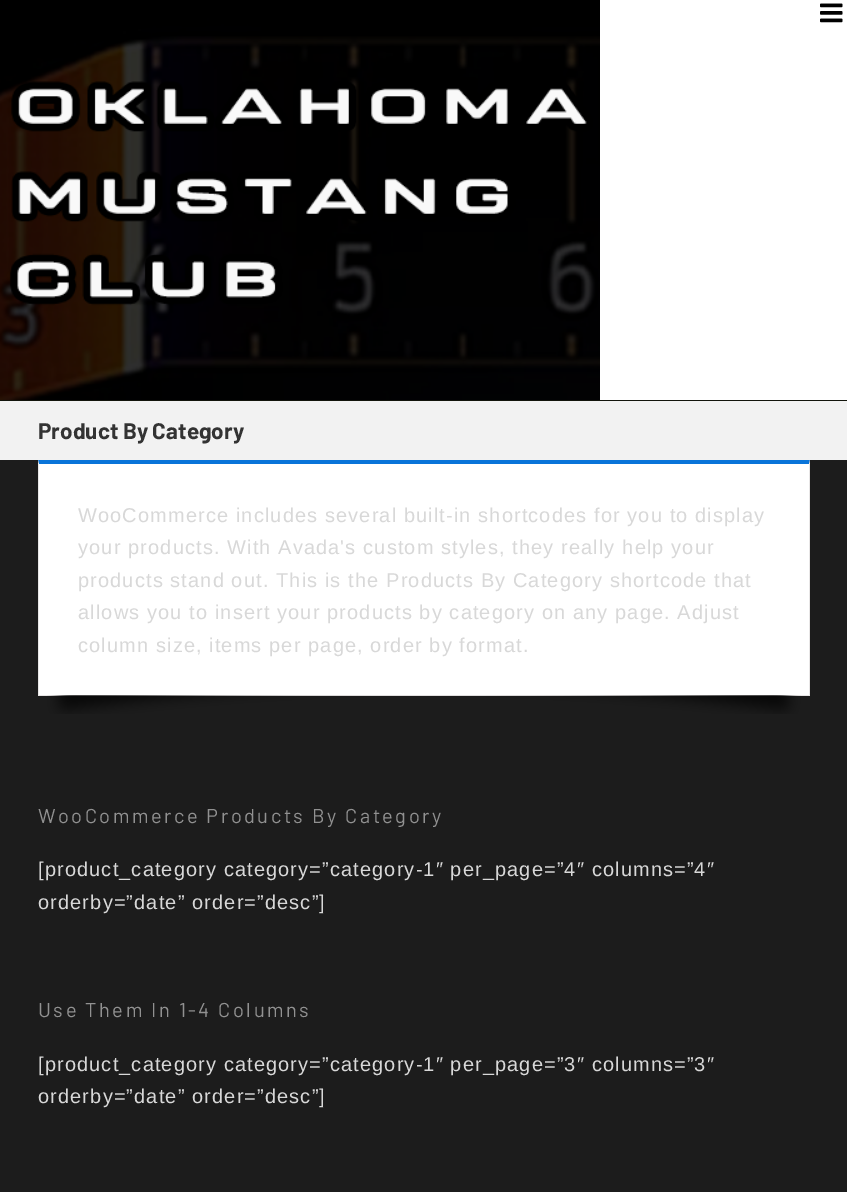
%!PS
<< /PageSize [847 1192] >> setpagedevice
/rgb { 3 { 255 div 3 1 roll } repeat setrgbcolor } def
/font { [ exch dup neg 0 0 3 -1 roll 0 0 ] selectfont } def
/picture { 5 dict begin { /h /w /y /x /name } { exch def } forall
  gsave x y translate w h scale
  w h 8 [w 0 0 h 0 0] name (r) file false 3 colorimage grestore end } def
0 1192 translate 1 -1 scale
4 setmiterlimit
242 242 242 rgb
0 0 847 1192 rectfill
255 255 255 rgb
600 0 247 400 rectfill
19 21 12 rgb
0 400 847 1 rectfill
(img/1.rgb) 0 0 600 400 picture
(img/2.rgb) 820 3 23 20 picture
28 28 28 rgb
0 460 847 732 rectfill
255 255 255 rgb
39 464 770 231 rectfill
9 116 217 rgb
38 460 moveto 810 460 lineto 809 464 lineto 39 464 lineto closepath fill
232 230 230 rgb
810 460 moveto 810 696 lineto 809 695 lineto 809 464 lineto closepath fill
38 695 772 1 rectfill
38 696 moveto 38 460 lineto 39 464 lineto 39 695 lineto closepath fill
(img/3.rgb) 47 695 754 19 picture
/Barlow-Bold 22.5 font
51 51 51 rgb
38 439 moveto (Product By Category) show
/LiberationSans-Regular 20 font
216 216 216 rgb
78 522 moveto 1.12 0 (WooCommerce includes several built-in shortcodes for you to display) ashow
78 554 moveto 1.12 0 (your products. With Avada's custom styles, they really help your) ashow
78 587 moveto 1.12 0 (products stand out. This is the Products By Category shortcode that) ashow
78 619 moveto 1.12 0 (allows you to insert your products by category on any page. Adjust) ashow
78 652 moveto 1.12 0 (column size, items per page, order by format.) ashow
/Barlow-Regular 20 font
145 145 145 rgb
38 823 moveto 2.5 0 (WooCommerce Products By Category) ashow
/LiberationSans-Regular 20 font
216 216 216 rgb
38 876 moveto 1.12 0 ([product_category category=”category-1″ per_page=”4″ columns=”4″) ashow
38 909 moveto 1.12 0 (orderby=”date” order=”desc”]) ashow
/Barlow-Regular 20 font
145 145 145 rgb
38 1017 moveto 2.5 0 (Use Them In 1-4 Columns) ashow
/LiberationSans-Regular 20 font
216 216 216 rgb
38 1071 moveto 1.12 0 ([product_category category=”category-1″ per_page=”3″ columns=”3″) ashow
38 1103 moveto 1.12 0 (orderby=”date” order=”desc”]) ashow
showpage
